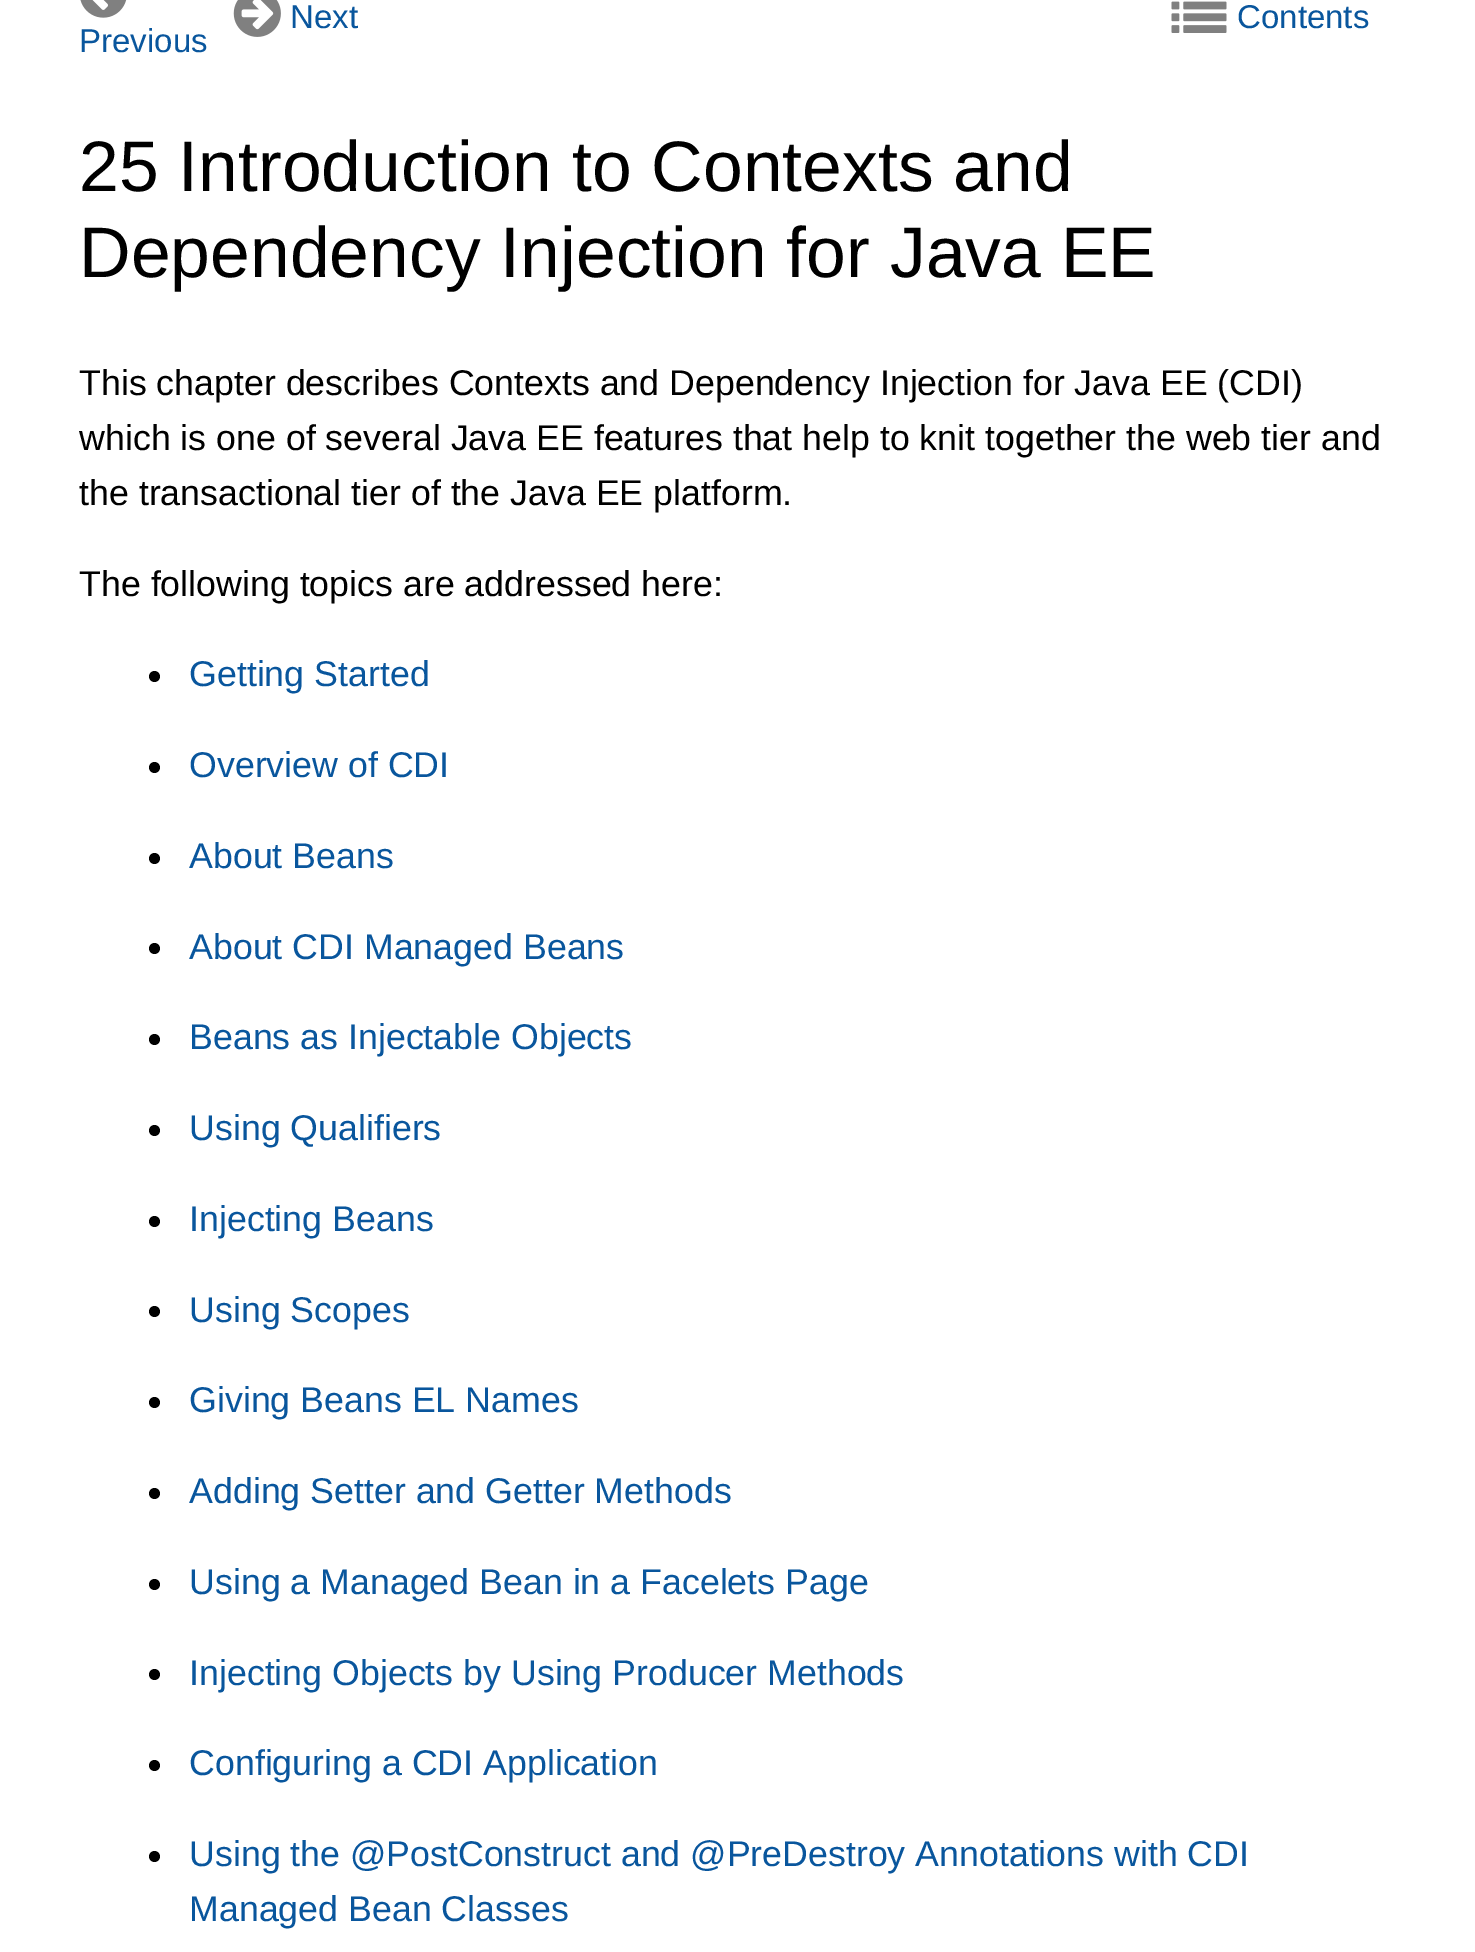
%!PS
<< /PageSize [1475 1952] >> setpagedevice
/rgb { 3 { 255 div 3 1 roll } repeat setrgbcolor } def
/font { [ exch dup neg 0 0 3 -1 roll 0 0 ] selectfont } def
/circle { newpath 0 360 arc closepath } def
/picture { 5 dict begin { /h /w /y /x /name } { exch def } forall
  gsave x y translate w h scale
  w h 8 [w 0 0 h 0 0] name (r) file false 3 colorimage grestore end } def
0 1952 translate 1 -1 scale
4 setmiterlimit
255 255 255 rgb
0 0 1475 1952 rectfill
(img/1.rgb) 233 0 48 37 picture
(img/2.rgb) 1171 1 56 32 picture
(img/3.rgb) 80 0 47 18 picture
0 0 0 rgb
154.5 676.5 5.5 circle fill
154.5 767.5 5.5 circle fill
154.5 858.5 5.5 circle fill
154.5 948.5 5.5 circle fill
154.5 1039.5 5.5 circle fill
154.5 1130.5 5.5 circle fill
154.5 1221.5 5.5 circle fill
154.5 1311.5 5.5 circle fill
154.5 1402.5 5.5 circle fill
154.5 1493.5 5.5 circle fill
154.5 1584.5 5.5 circle fill
154.5 1674.5 5.5 circle fill
154.5 1765.5 5.5 circle fill
154.5 1856.5 5.5 circle fill
/LiberationSans-Regular 33 font
9 86 157 rgb
[
  [(Next) 290 28]
  [(Contents) 1237 28]
  [(Previous) 79 52]
] { aload pop moveto show } forall
/LiberationSans-Regular 71.5 font
0 0 0 rgb
79 191 moveto (25 Introduction to Contexts and) show
79 277 moveto (Dependency Injection for Java EE) show
/LiberationSans-Regular 35.75 font
[
  [(This chapter describes Contexts and Dependency Injection for Java EE \(CDI\)) 79 395]
  [(which is one of several Java EE features that help to knit together the web tier and) 79 450]
  [(the transactional tier of the Java EE platform.) 79 505]
  [(The following topics are addressed here:) 79 596]
] { aload pop moveto show } forall
9 86 157 rgb
[
  [(Getting Started) 189 686]
  [(Overview of CDI) 189 777]
  [(About Beans) 189 868]
  [(About CDI Managed Beans) 189 959]
  [(Beans as Injectable Objects) 189 1049]
  [(Using Qualifiers) 189 1140]
  [(Injecting Beans) 189 1231]
  [(Using Scopes) 189 1322]
  [(Giving Beans EL Names) 189 1412]
  [(Adding Setter and Getter Methods) 189 1503]
  [(Using a Managed Bean in a Facelets Page) 189 1594]
  [(Injecting Objects by Using Producer Methods) 189 1685]
  [(Configuring a CDI Application) 189 1775]
  [(Using the @PostConstruct and @PreDestroy Annotations with CDI) 189 1866]
  [(Managed Bean Classes) 189 1921]
] { aload pop moveto show } forall
showpage
